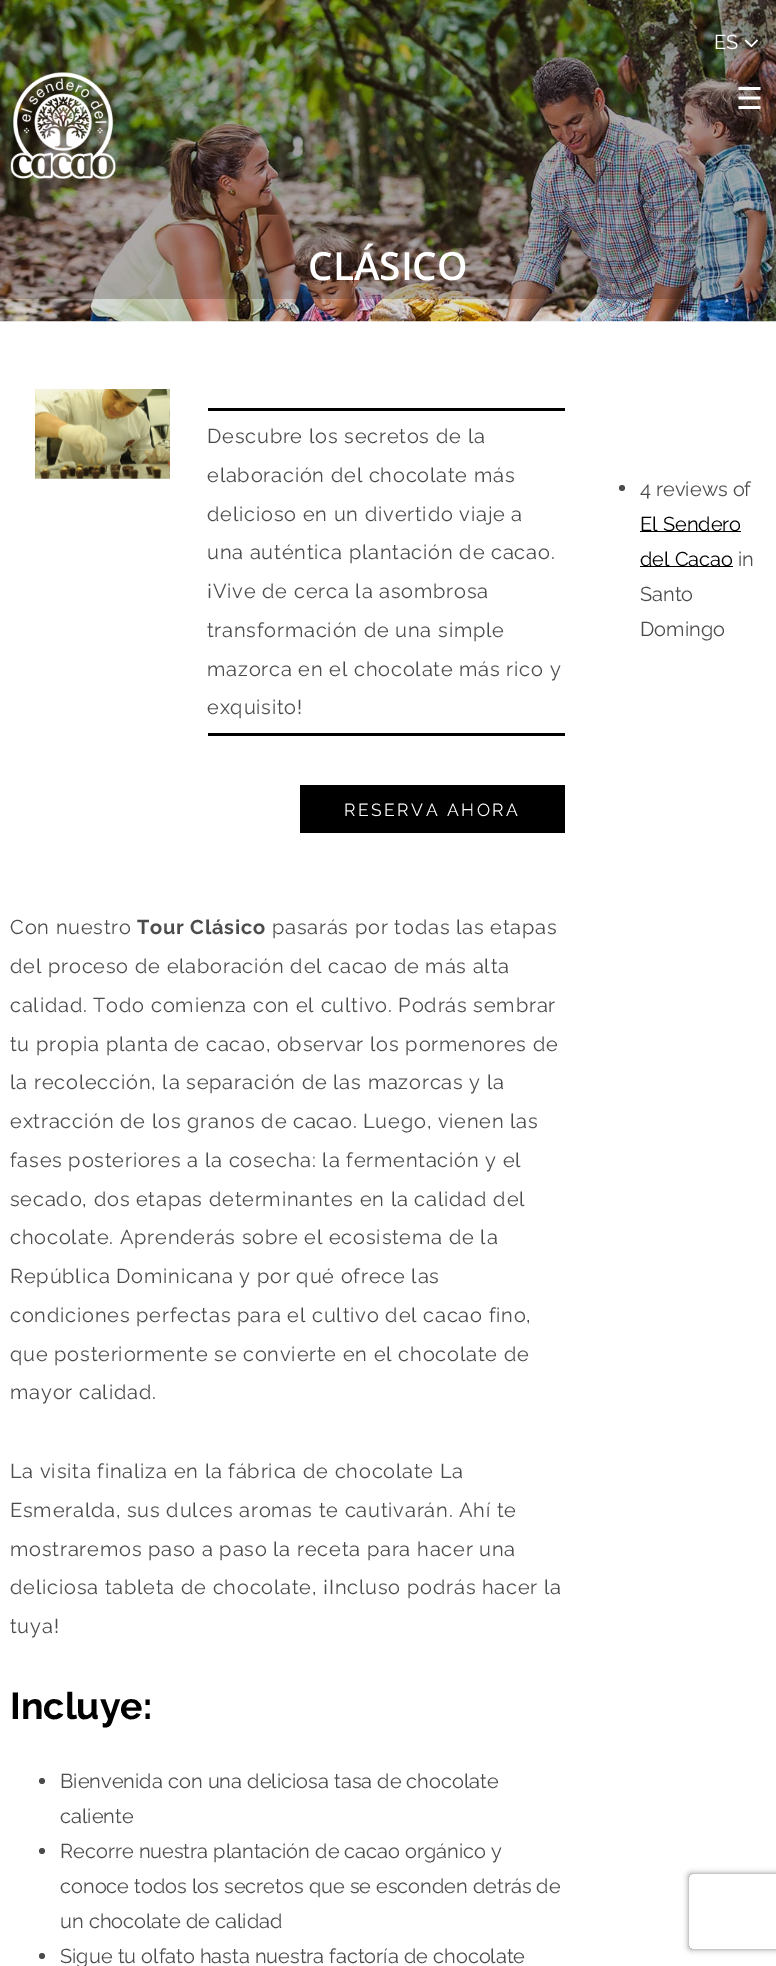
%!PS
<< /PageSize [776 1966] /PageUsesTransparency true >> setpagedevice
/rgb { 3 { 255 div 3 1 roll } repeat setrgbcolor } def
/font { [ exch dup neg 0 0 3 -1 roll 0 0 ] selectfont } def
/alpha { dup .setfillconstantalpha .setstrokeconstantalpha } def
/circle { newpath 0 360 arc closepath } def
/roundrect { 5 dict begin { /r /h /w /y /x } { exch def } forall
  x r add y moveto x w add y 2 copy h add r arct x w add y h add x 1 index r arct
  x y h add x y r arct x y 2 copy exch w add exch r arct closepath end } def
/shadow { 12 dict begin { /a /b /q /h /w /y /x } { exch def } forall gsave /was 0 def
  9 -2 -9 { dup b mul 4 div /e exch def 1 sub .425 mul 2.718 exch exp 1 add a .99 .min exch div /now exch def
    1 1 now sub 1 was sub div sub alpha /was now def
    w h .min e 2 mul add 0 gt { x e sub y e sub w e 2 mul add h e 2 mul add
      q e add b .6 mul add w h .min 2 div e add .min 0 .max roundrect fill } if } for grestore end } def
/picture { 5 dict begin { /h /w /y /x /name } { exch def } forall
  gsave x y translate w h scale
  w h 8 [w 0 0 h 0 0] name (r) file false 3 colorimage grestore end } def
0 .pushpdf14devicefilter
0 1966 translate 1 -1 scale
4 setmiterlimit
255 255 255 rgb
0 0 776 1966 rectfill
(img/1.rgb) 0 0 776 322 picture
(img/2.rgb) 744 39 14 9 picture
(img/3.rgb) 10 72 106 107 picture
(img/4.rgb) 35 389 135 90 picture
(img/5.rgb) 169 389 1 90 picture
[
  [208 408 357 3 0 0 0]
  [208 733 357 3 0 0 0]
  [300 785 265 48 0 0 0]
] { aload pop rgb rectfill } forall
76 76 76 rgb
42 1781 3 circle fill
42 1851 3 circle fill
42 1956 3 circle fill
622 488 3 circle fill
0 0 0 rgb
640 531 101 1 rectfill
640 566 93 1 rectfill
gsave
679 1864 moveto 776 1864 lineto 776 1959 lineto 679 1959 lineto closepath 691.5 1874 moveto 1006.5 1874 lineto 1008 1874 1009 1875 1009 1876.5 curveto 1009 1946.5 lineto 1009 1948 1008 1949 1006.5 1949 curveto 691.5 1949 lineto 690 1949 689 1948 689 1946.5 curveto 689 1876.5 lineto 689 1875 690 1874 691.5 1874 curveto closepath eoclip newpath
128 128 128 rgb
689 1874 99 75 2.5 3 1 shadow
grestore
/Raleway-Regular 20 font
255 255 255 rgb
714 49 moveto (ES) show
/DejaVuSans-Regular 30 font
736 109 moveto (☰) show
/OpenSans-SemiBold 38.75 font
308 280 moveto (CLÁSICO) show
/Raleway-Regular 20 font
76 76 76 rgb
207 443 moveto 0.8 0 (Descubre los secretos de la) ashow
207 482 moveto 0.8 0 (elaboración del chocolate más) ashow
207 521 moveto 0.8 0 (delicioso en un divertido viaje a) ashow
207 559 moveto 0.8 0 (una auténtica plantación de cacao.) ashow
207 598 moveto 0.8 0 (¡Vive de cerca la asombrosa) ashow
207 637 moveto 0.8 0 (transformación de una simple) ashow
207 676 moveto 0.8 0 (mazorca en el chocolate más rico y) ashow
207 714 moveto 0.8 0 (exquisito!) ashow
/Raleway-Regular 17.5 font
255 255 255 rgb
344 816 moveto 2.5 0 (RESERVA AHORA) ashow
/Raleway-Regular 20 font
76 76 76 rgb
10 934 moveto 0.8 0 (Con nuestro) ashow
/Raleway-Bold 20 font
137 934 moveto 0.8 0 (Tour Clásico) ashow
/Raleway-Regular 20 font
272 934 moveto 0.8 0 (pasarás por todas las etapas) ashow
10 973 moveto 0.8 0 (del proceso de elaboración del cacao de más alta) ashow
10 1012 moveto 0.8 0 (calidad. Todo comienza con el cultivo. Podrás sembrar) ashow
10 1051 moveto 0.8 0 (tu propia planta de cacao, observar los pormenores de) ashow
10 1089 moveto 0.8 0 (la recolección, la separación de las mazorcas y la) ashow
10 1128 moveto 0.8 0 (extracción de los granos de cacao. Luego, vienen las) ashow
10 1167 moveto 0.8 0 (fases posteriores a la cosecha: la fermentación y el) ashow
10 1206 moveto 0.8 0 (secado, dos etapas determinantes en la calidad del) ashow
10 1244 moveto 0.8 0 (chocolate. Aprenderás sobre el ecosistema de la) ashow
10 1283 moveto 0.8 0 (República Dominicana y por qué ofrece las) ashow
10 1322 moveto 0.8 0 (condiciones perfectas para el cultivo del cacao fino,) ashow
10 1361 moveto 0.8 0 (que posteriormente se convierte en el chocolate de) ashow
10 1399 moveto 0.8 0 (mayor calidad.) ashow
10 1478 moveto 0.8 0 (La visita finaliza en la fábrica de chocolate La) ashow
10 1517 moveto 0.8 0 (Esmeralda, sus dulces aromas te cautivarán. Ahí te) ashow
10 1556 moveto 0.8 0 (mostraremos paso a paso la receta para hacer una) ashow
10 1594 moveto 0.8 0 (deliciosa tableta de chocolate, ¡Incluso podrás hacer la) ashow
10 1633 moveto 0.8 0 (tuya!) ashow
/Raleway-Bold 37.5 font
0 0 0 rgb
10 1719 moveto (Incluye:) show
/Raleway-Regular 20 font
76 76 76 rgb
[
  [(Bienvenida con una deliciosa tasa de chocolate) 60 1788]
  [(caliente) 60 1823]
  [(Recorre nuestra plantación de cacao orgánico y) 60 1858]
  [(conoce todos los secretos que se esconden detrás de) 60 1893]
  [(un chocolate de calidad) 60 1928]
  [(Sigue tu olfato hasta nuestra factoría de chocolate) 60 1963]
  [(4 reviews of) 640 496]
] { aload pop moveto show } forall
0 0 0 rgb
640 531 moveto (El Sendero) show
640 566 moveto (del Cacao) show
76 76 76 rgb
[
  [(in) 738 566]
  [(Santo) 640 601]
  [(Domingo) 640 636]
] { aload pop moveto show } forall
.poppdf14devicefilter showpage
